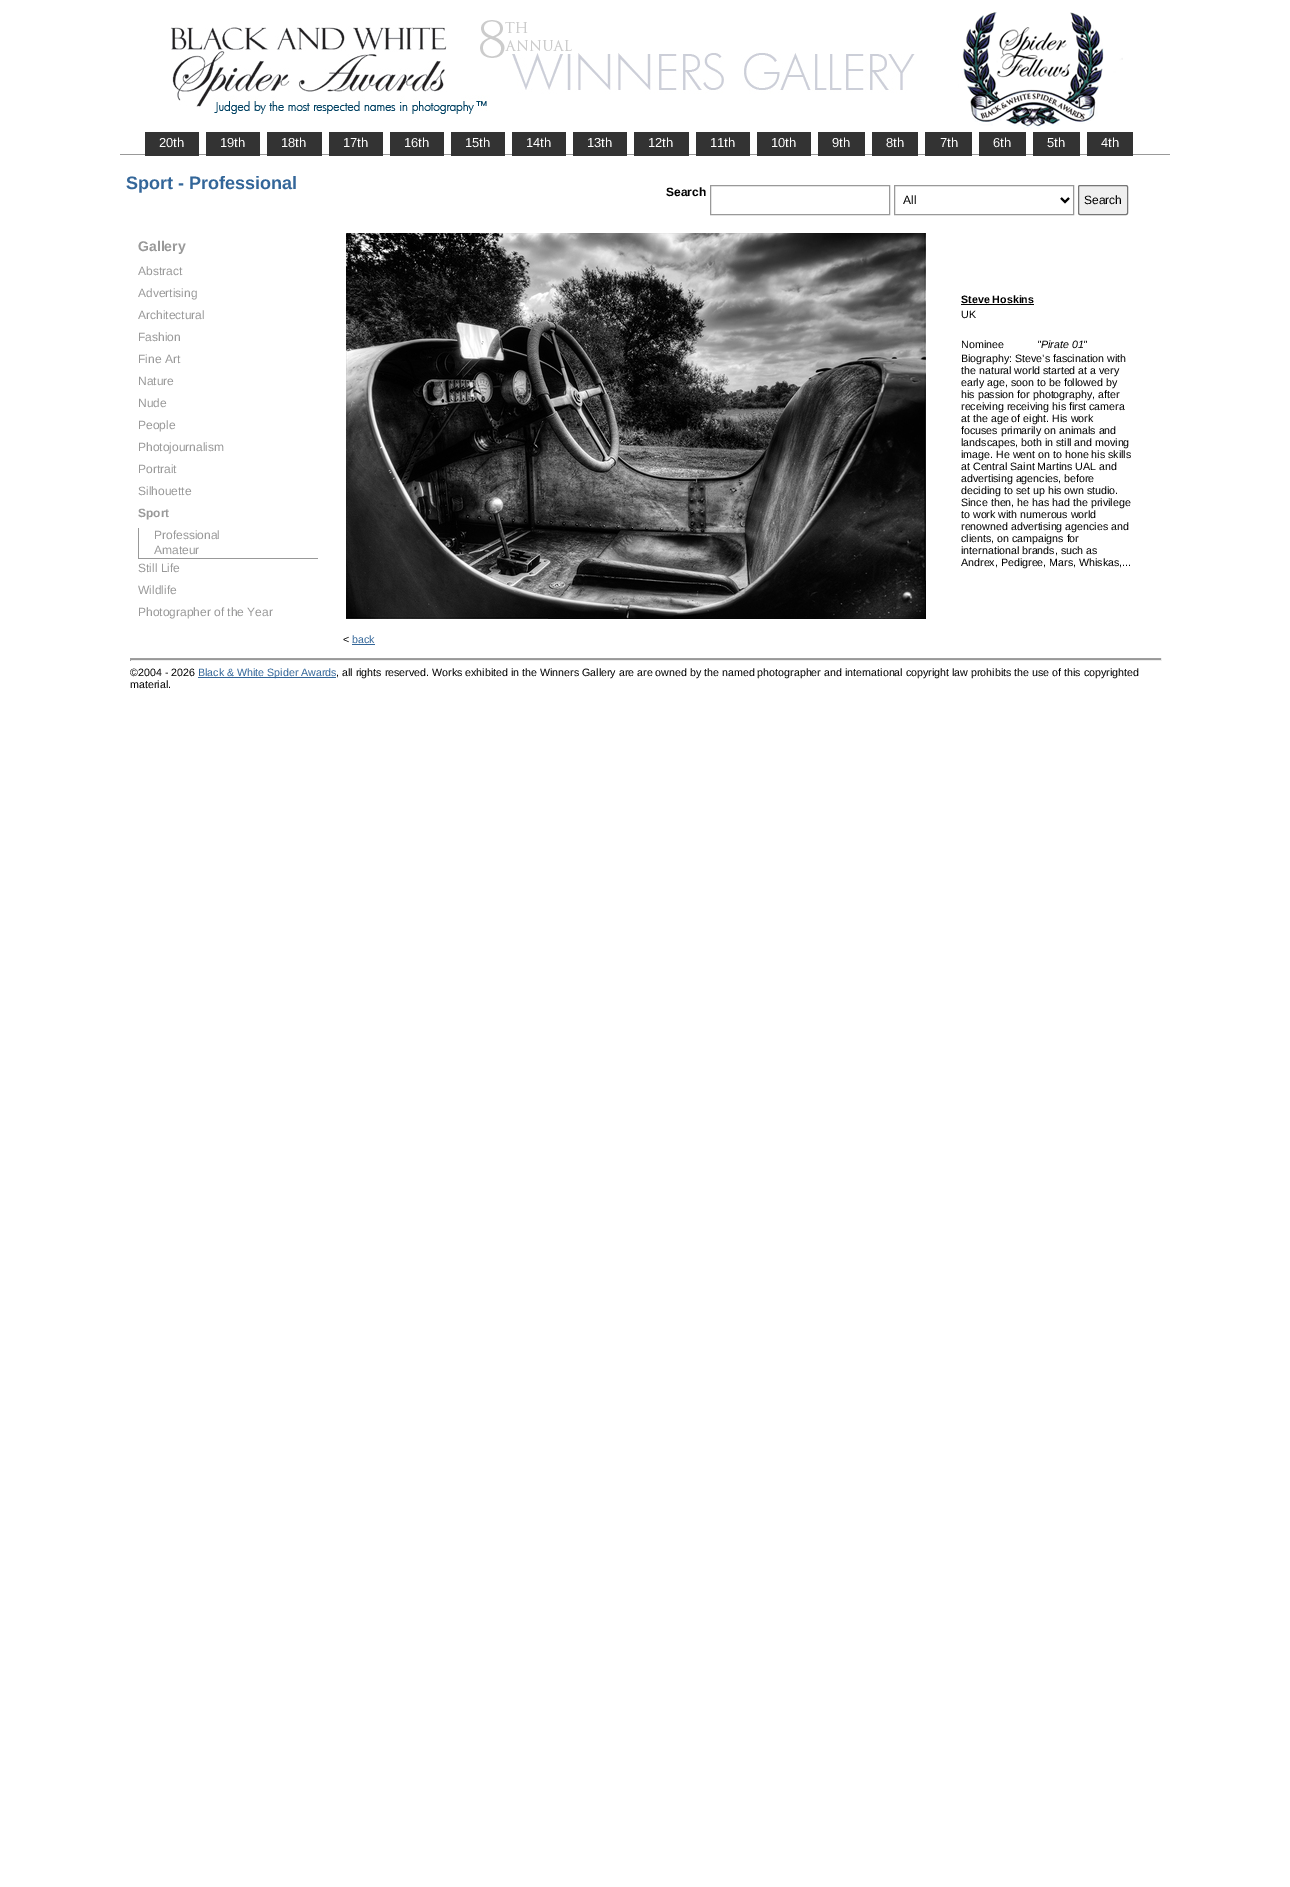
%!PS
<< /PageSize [1290 1887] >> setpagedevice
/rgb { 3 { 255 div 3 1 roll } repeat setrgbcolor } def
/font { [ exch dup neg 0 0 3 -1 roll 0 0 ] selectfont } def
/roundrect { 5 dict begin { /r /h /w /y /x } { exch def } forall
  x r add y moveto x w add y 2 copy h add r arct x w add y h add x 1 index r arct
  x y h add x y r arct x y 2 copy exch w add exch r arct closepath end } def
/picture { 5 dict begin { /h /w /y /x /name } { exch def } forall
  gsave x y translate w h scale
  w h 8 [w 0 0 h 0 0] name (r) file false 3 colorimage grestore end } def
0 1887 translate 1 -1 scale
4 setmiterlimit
255 255 255 rgb
0 0 1290 1887 rectfill
(img/1.rgb) 170 12 953 118 picture
[
  [120 154 1050 1 153 153 153]
  [145 132 54 24 51 51 51]
  [206 132 54 24 51 51 51]
  [267 132 55 24 51 51 51]
  [329 132 54 24 51 51 51]
  [390 132 54 24 51 51 51]
  [451 132 54 24 51 51 51]
  [512 132 54 24 51 51 51]
  [573 132 54 24 51 51 51]
  [634 132 55 24 51 51 51]
  [696 132 54 24 51 51 51]
  [757 132 54 24 51 51 51]
  [818 132 47 24 51 51 51]
  [872 132 46 24 51 51 51]
  [925 132 47 24 51 51 51]
  [979 132 47 24 51 51 51]
  [1033 132 47 24 51 51 51]
  [1087 132 46 24 51 51 51]
] { aload pop rgb rectfill } forall
153 153 153 rgb
710.5 185.5 179 29 rectstroke
894.5 185.5 179 29 rectstroke
0 0 0 rgb
2 setlinewidth
1061 198 moveto 1065 202 lineto 1069 198 lineto stroke
239 239 239 rgb
1078.5 185.5 49 29 1.5 roundrect gsave fill grestore
118 118 118 rgb
1 setlinewidth
stroke
153 153 153 rgb
138 558 180 1 rectfill
138 528 1 31 rectfill
(img/2.rgb) 346 233 580 386 picture
[
  [961 304 73 1 0 0 0]
  [352 644 23 1 51 102 153]
  [130 659 1032 1 153 153 153]
  [130 658 1032 1 159 159 159]
  [1161 658 1 3 238 238 238]
  [130 660 1032 1 238 238 238]
  [130 658 1 3 159 159 159]
  [198 677 138 1 51 102 153]
] { aload pop rgb rectfill } forall
/LiberationSans-Regular 13 font
255 255 255 rgb
[
  [(20th) 159 147]
  [(19th) 220 147]
  [(18th) 281 147]
  [(17th) 343 147]
  [(16th) 404 147]
  [(15th) 465 147]
  [(14th) 526 147]
  [(13th) 587 147]
  [(12th) 648 147]
  [(11th) 710 147]
  [(10th) 771 147]
  [(9th) 832 147]
  [(8th) 886 147]
  [(7th) 940 147]
  [(6th) 993 147]
  [(5th) 1047 147]
  [(4th) 1101 147]
] { aload pop moveto show } forall
/LiberationSans-Bold 18 font
51 102 153 rgb
126 189 moveto (Sport - Professional) show
/LiberationSans-Bold 12 font
0 0 0 rgb
666 196 moveto (Search) show
/LiberationSans-Regular 12 font
903 204 moveto (All) show
1084 204 moveto (Search) show
/LiberationSans-Bold 14 font
153 153 153 rgb
138 251 moveto (Gallery) show
/LiberationSans-Regular 12 font
[
  [(Abstract) 138 275]
  [(Advertising) 138 297]
  [(Architectural) 138 319]
  [(Fashion) 138 341]
  [(Fine Art) 138 363]
  [(Nature) 138 385]
  [(Nude) 138 407]
  [(People) 138 429]
  [(Photojournalism) 138 451]
  [(Portrait) 138 473]
  [(Silhouette) 138 495]
] { aload pop moveto show } forall
/LiberationSans-Bold 12 font
138 517 moveto (Sport) show
/LiberationSans-Regular 12 font
[
  [(Professional) 154 539]
  [(Amateur) 154 554]
  [(Still Life) 138 572]
  [(Wildlife) 138 594]
  [(Photographer of the Year) 138 616]
] { aload pop moveto show } forall
/LiberationSans-Bold 10.67 font
0 0 0 rgb
961 303 moveto (Steve Hoskins) show
/LiberationSans-Regular 10.67 font
961 318 moveto (UK) show
961 348 moveto (Nominee) show
/LiberationSans-Italic 10.67 font
1037 348 moveto ("Pirate 01") show
/LiberationSans-Regular 10.67 font
[
  [(Biography: Steve’s fascination with) 961 362]
  [(the natural world started at a very) 961 374]
  [(early age, soon to be followed by) 961 386]
  [(his passion for photography, after) 961 398]
  [(receiving receiving his first camera) 961 410]
  [(at the age of eight. His work) 961 422]
  [(focuses primarily on animals and) 961 434]
  [(landscapes, both in still and moving) 961 446]
  [(image. He went on to hone his skills) 961 458]
  [(at Central Saint Martins UAL and) 961 470]
  [(advertising agencies, before) 961 482]
  [(deciding to set up his own studio.) 961 494]
  [(Since then, he has had the privilege) 961 506]
  [(to work with numerous world) 961 518]
  [(renowned advertising agencies and) 961 530]
  [(clients, on campaigns for) 961 542]
  [(international brands, such as) 961 554]
  [(Andrex, Pedigree, Mars, Whiskas,...) 961 566]
  [(<) 343 643]
] { aload pop moveto show } forall
51 102 153 rgb
352 643 moveto (back) show
0 0 0 rgb
130 676 moveto (©2004 - 2026) show
51 102 153 rgb
198 676 moveto (Black & White Spider Awards) show
0 0 0 rgb
336 676 moveto (, all rights reserved. Works exhibited in the Winners Gallery are are owned by the named photographer and international copyright law prohibits the use of this copyrighted) show
130 688 moveto (material.) show
showpage
